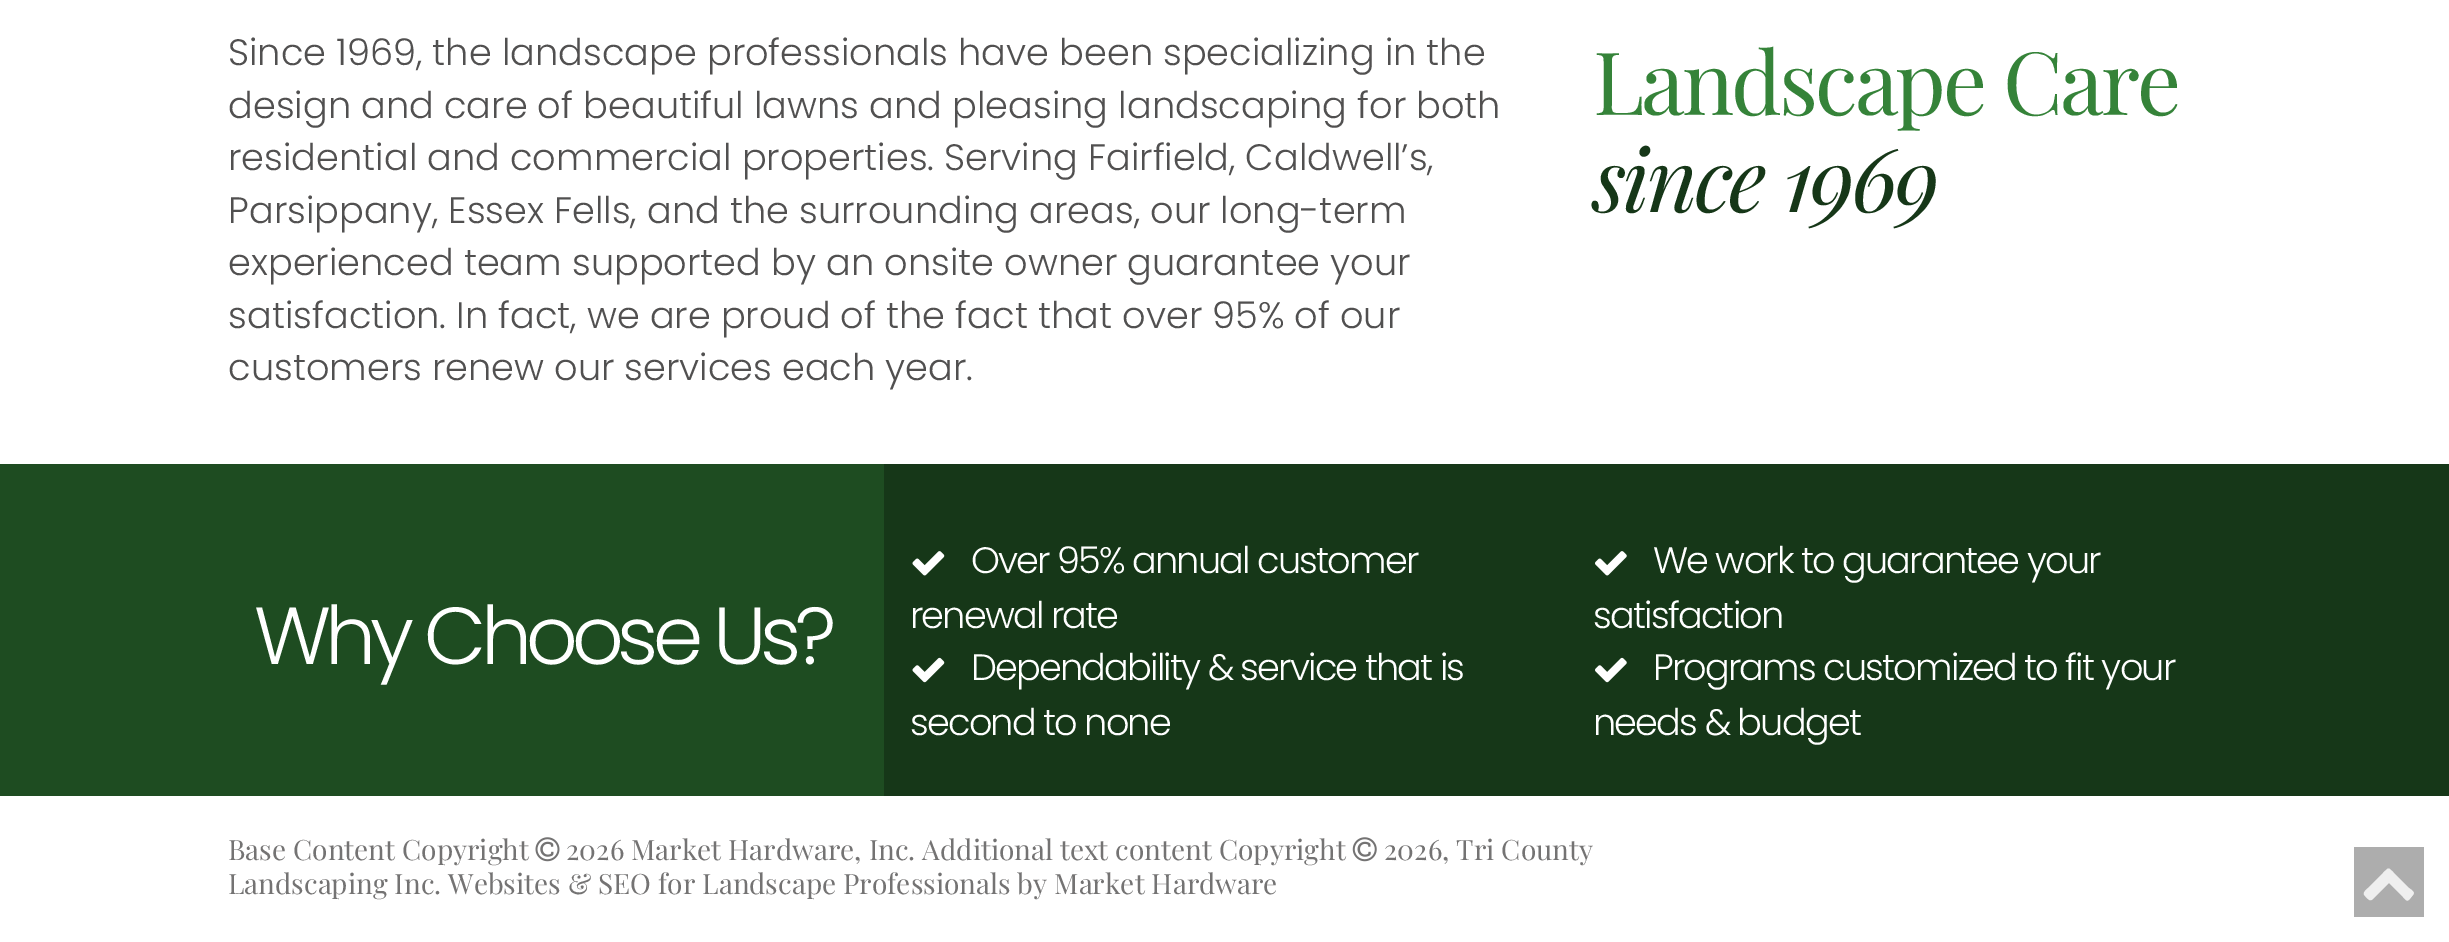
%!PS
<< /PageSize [2449 942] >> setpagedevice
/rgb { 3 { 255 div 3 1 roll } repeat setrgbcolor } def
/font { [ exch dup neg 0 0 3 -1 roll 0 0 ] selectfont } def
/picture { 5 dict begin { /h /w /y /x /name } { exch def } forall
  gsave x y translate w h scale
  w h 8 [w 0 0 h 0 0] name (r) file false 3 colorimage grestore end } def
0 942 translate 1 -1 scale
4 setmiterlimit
255 255 255 rgb
0 0 2449 942 rectfill
30 76 33 rgb
0 464 884 332 rectfill
22 55 24 rgb
884 464 1565 332 rectfill
(img/1.rgb) 912 551 33 25 picture
(img/2.rgb) 912 657 33 26 picture
(img/3.rgb) 1595 551 32 25 picture
(img/4.rgb) 1595 657 32 26 picture
(img/5.rgb) 535 837 25 25 picture
(img/6.rgb) 1352 837 25 25 picture
173 173 173 rgb
2354 847 70 70 rectfill
239 239 239 rgb
2413 895 moveto 2408 901 2408 903 2403 897 curveto 2389 883 lineto 2375 897 lineto 2370 902 2370 901 2365 896 curveto 2362 893 2365 891 2368 888 curveto 2383 873 lineto 2389 867 2388 867 2394 873 curveto 2409 888 lineto 2410 889 2416 892 2413 895 curveto closepath fill
/Poppins-Light 36.75 font
81 80 80 rgb
[
  [(Since 1969, the landscape professionals have been specializing in the) 228 65]
  [(design and care of beautiful lawns and pleasing landscaping for both) 228 118]
  [(residential and commercial properties. Serving Fairfield, Caldwell’s,) 228 170]
  [(Parsippany, Essex Fells, and the surrounding areas, our long-term) 228 223]
  [(experienced team supported by an onsite owner guarantee your) 228 275]
  [(satisfaction. In fact, we are proud of the fact that over 95% of our) 228 328]
  [(customers renew our services each year.) 228 380]
] { aload pop moveto show } forall
/PlayfairDisplay-Regular 87.5 font
53 131 57 rgb
1593 115 moveto -3 0 (Landscape Care) ashow
/PlayfairDisplay-Italic 87.5 font
22 55 24 rgb
1593 212 moveto -3 0 (since 1969) ashow
/Poppins-Light 80.75 font
255 255 255 rgb
254 664 moveto -6 0 (Why Choose Us?) ashow
/Poppins-Light 36.75 font
971 573 moveto -1.85 0 (Over 95% annual customer) ashow
910 628 moveto -1.85 0 (renewal rate) ashow
971 680 moveto -1.85 0 (Dependability & service that is) ashow
910 735 moveto -1.85 0 (second to none) ashow
1653 573 moveto -1.85 0 (We work to guarantee your) ashow
1593 628 moveto -1.85 0 (satisfaction) ashow
1653 680 moveto -1.85 0 (Programs customized to fit your) ashow
1593 735 moveto -1.85 0 (needs & budget) ashow
/PlayfairDisplay-Regular 28 font
116 115 115 rgb
[
  [(Base Content Copyright) 228 860]
  [(2026 Market Hardware, Inc. Additional text content Copyright) 566 860]
  [(2026, Tri County) 1384 860]
  [(Landscaping Inc. Websites & SEO for Landscape Professionals by Market Hardware) 228 894]
] { aload pop moveto show } forall
showpage
